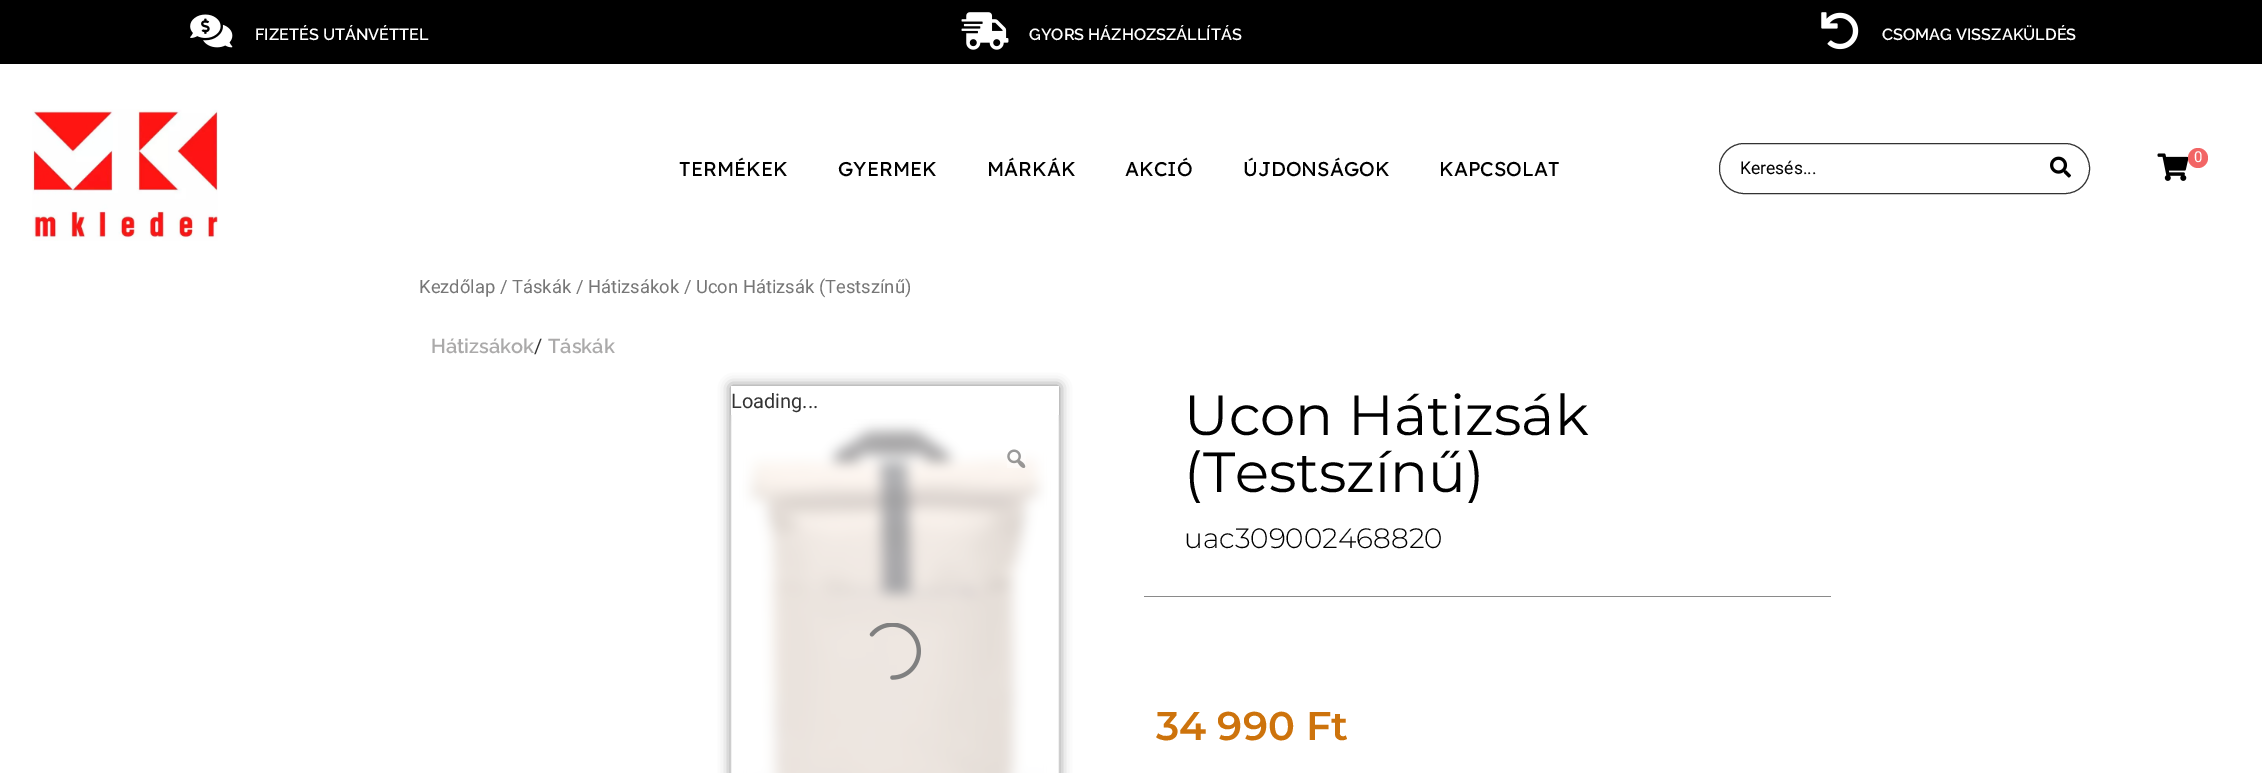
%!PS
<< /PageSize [2262 773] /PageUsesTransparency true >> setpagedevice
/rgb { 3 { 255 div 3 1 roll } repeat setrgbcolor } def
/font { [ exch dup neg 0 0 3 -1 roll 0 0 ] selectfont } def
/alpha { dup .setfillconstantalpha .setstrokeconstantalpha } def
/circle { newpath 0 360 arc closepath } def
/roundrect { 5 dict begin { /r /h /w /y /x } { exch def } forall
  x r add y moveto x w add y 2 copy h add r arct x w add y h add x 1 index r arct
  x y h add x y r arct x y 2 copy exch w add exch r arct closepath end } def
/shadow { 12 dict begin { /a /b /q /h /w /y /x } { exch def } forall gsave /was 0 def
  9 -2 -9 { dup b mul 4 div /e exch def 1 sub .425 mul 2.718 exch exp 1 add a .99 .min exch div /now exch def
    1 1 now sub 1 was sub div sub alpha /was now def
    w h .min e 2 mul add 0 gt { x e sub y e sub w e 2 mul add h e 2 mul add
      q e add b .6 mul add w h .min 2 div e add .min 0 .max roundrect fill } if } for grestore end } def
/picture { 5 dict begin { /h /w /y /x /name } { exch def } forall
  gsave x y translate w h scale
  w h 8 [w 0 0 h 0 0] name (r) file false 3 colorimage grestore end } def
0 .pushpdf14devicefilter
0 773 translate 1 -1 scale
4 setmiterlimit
255 255 255 rgb
0 0 2262 773 rectfill
0 0 0 rgb
0 0 2262 64 rectfill
(img/1.rgb) 190 14 43 34 picture
(img/2.rgb) 961 12 48 38 picture
(img/3.rgb) 1821 12 38 38 picture
(img/4.rgb) 32 109 186 132 picture
51 51 51 rgb
1719.5 143.5 370 50 24.5 roundrect stroke
(img/5.rgb) 2050 156 21 22 picture
(img/6.rgb) 2157 153 32 28 picture
242 101 101 rgb
2198 158 10 circle fill
gsave
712 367 moveto 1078 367 lineto 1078 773 lineto 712 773 lineto closepath 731 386 moveto 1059 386 lineto 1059 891 lineto 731 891 lineto closepath eoclip newpath
0 0 0 rgb
731 386 328 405 0 6 0.5 shadow
grestore
(img/7.rgb) 730 415 330 358 picture
(img/8.rgb) 1007 449 19 19 picture
(img/9.rgb) 869 623 52 57 picture
138 138 138 rgb
1144 596 687 1 rectfill
/Raleway-SemiBold 16.25 font
255 255 255 rgb
[
  [(FIZETÉS UTÁNVÉTTEL) 255 40]
  [(GYORS HÁZHOZSZÁLLÍTÁS) 1029 40]
  [(CSOMAG VISSZAKÜLDÉS) 1882 40]
] { aload pop moveto show } forall
/LexendDeca-Regular 20 font
0 0 0 rgb
[
  [(TERMÉKEK) 679 176]
  [(GYERMEK) 838 176]
  [(MÁRKÁK) 987 176]
  [(AKCIÓ) 1125 176]
  [(ÚJDONSÁGOK) 1243 176]
  [(KAPCSOLAT) 1439 176]
] { aload pop moveto show } forall
/Roboto-Regular 17.5 font
1740 174 moveto (Keresés...) show
/Roboto-Regular 15 font
255 255 255 rgb
2194 162 moveto (0) show
/Roboto-Regular 18.4 font
118 118 118 rgb
419 293 moveto (Kezdőlap / Táskák / Hátizsákok / Ucon Hátizsák \(Testszínű\)) show
/Raleway-SemiBold 20 font
171 170 170 rgb
431 353 moveto (Hátizsákok) show
/Roboto-Regular 20 font
51 51 51 rgb
534 353 moveto (/) show
/Raleway-SemiBold 20 font
171 170 170 rgb
548 353 moveto (Táskák) show
/Roboto-Regular 20 font
51 51 51 rgb
731 408 moveto (Loading...) show
/Montserrat-Regular 56.25 font
0 0 0 rgb
1184 435 moveto (Ucon Hátizsák) show
1184 492 moveto (\(Testszínű\)) show
/Montserrat-Light 28 font
1184 548 moveto (uac309002468820) show
/Montserrat-SemiBold 40 font
205 115 12 rgb
1156 740 moveto (34 990 Ft) show
.poppdf14devicefilter showpage
